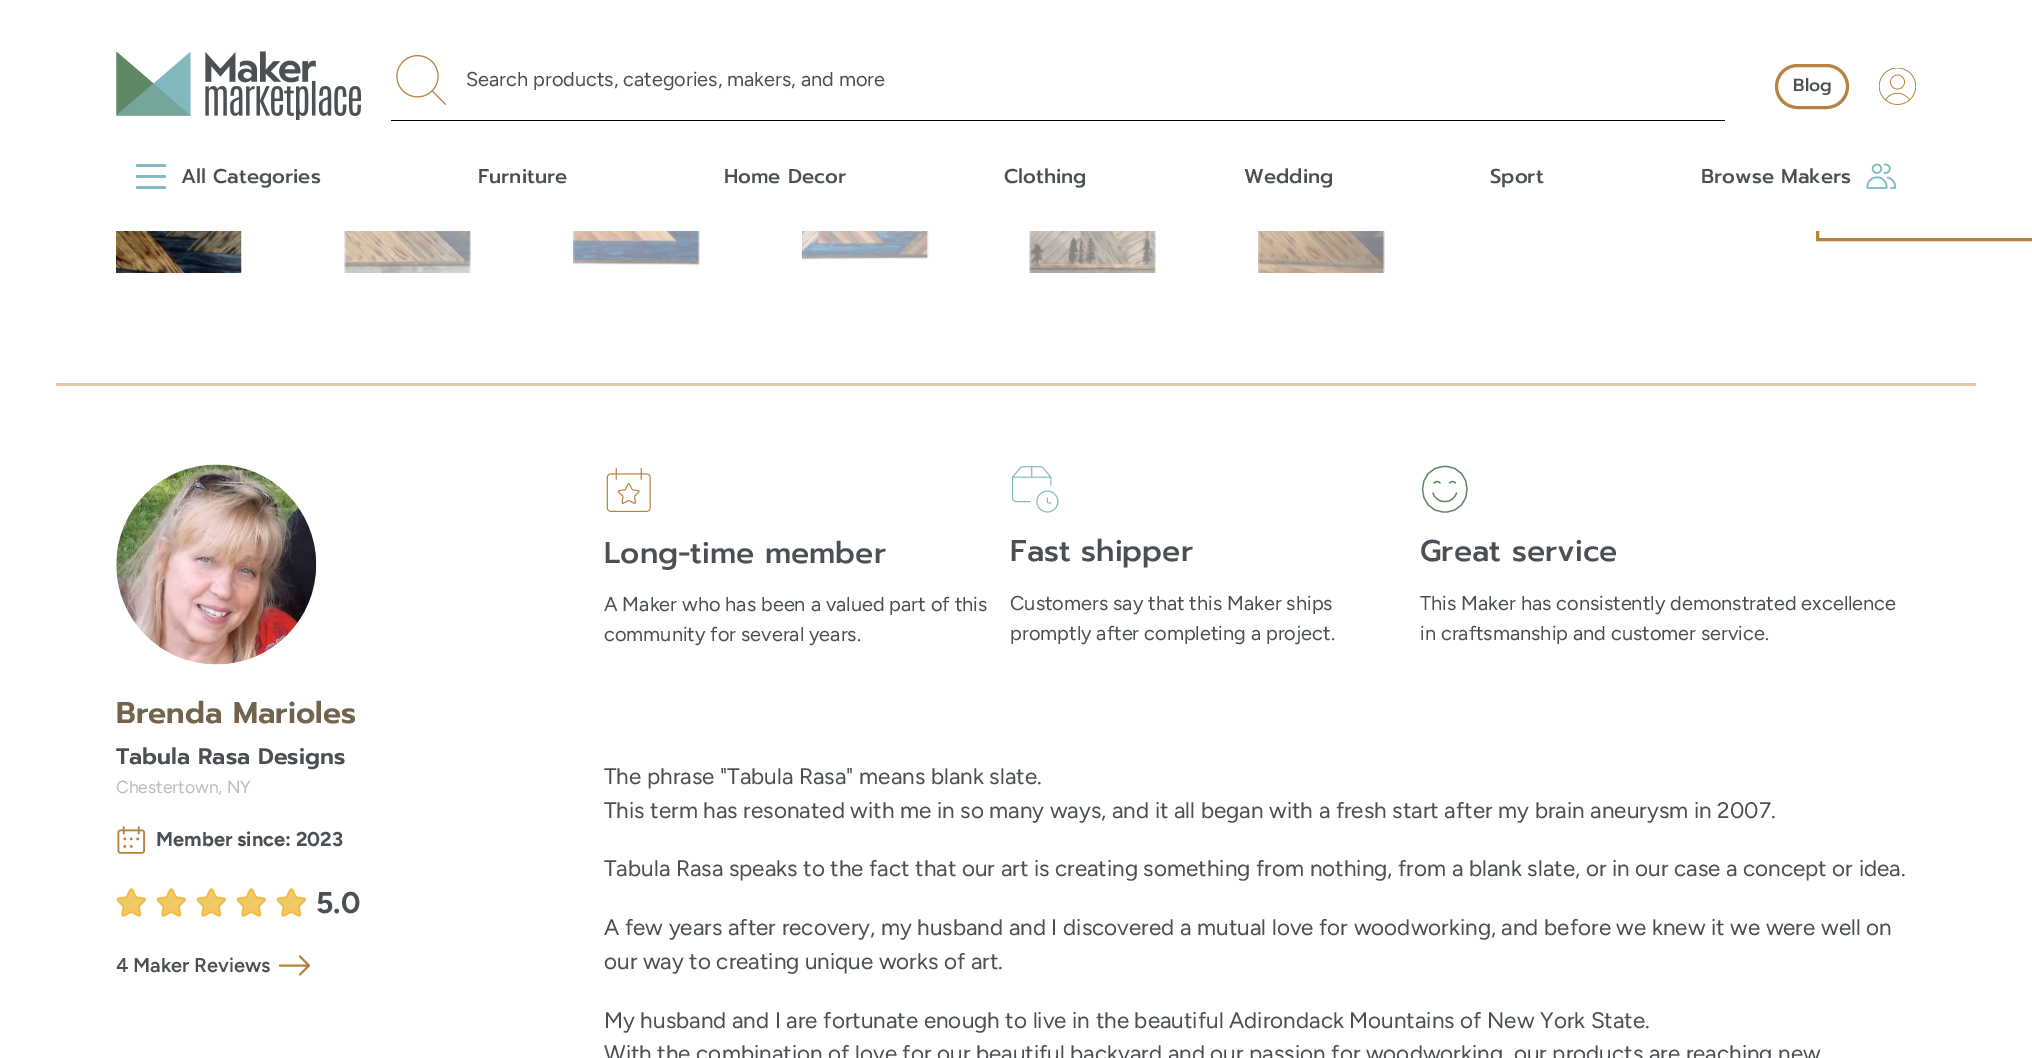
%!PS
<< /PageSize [2032 1058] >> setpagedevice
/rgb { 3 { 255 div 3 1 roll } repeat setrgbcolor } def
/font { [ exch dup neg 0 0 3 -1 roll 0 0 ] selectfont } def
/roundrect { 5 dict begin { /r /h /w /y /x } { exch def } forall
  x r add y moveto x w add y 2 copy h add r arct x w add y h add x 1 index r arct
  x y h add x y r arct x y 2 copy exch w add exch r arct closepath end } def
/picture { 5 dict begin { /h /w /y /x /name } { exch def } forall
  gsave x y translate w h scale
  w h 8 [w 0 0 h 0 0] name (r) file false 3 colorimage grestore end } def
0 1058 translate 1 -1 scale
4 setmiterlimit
255 255 255 rgb
0 0 2032 1058 rectfill
180 130 65 rgb
3 setlinewidth
1817.5 182.5 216 57 rectstroke
255 255 255 rgb
1816 181 216 50 rectfill
(img/1.rgb) 116 51 245 69 picture
0 0 0 rgb
391 120 1334 1 rectfill
(img/2.rgb) 396 55 50 50 picture
180 130 65 rgb
1776.5 65.5 71 42 21 roundrect stroke
(img/3.rgb) 1879 68 37 37 picture
130 186 191 rgb
136 164 30 3 1.5 roundrect fill
136 175 30 3 1.5 roundrect fill
136 186 30 3 1.5 roundrect fill
(img/4.rgb) 1866 163 30 26 picture
224 200 169 rgb
56 383 1920 3 rectfill
(img/5.rgb) 116 231 126 42 picture
(img/6.rgb) 344 231 127 42 picture
(img/7.rgb) 573 231 127 40 picture
(img/8.rgb) 802 231 127 32 picture
(img/9.rgb) 1029 231 127 42 picture
(img/10.rgb) 1258 231 127 42 picture
(img/11.rgb) 116 464 201 201 picture
(img/12.rgb) 117 826 29 28 picture
(img/13.rgb) 116 888 30 29 picture
(img/13.rgb) 156 888 30 29 picture
(img/13.rgb) 196 888 30 29 picture
(img/13.rgb) 236 888 30 29 picture
(img/13.rgb) 276 888 30 29 picture
180 130 65 rgb
2 setlinewidth
1 setlinecap
1 setlinejoin
280 965.5 moveto 309 965.5 lineto 300 974.5 moveto 309 965.5 lineto 300 956.5 lineto stroke
(img/14.rgb) 606 468 45 44 picture
(img/15.rgb) 1011 466 48 47 picture
95 134 100 rgb
1.2 setlinewidth
1445 512 moveto 1474.5 512 1474.5 466.5 1445 466.5 curveto 1415 466.5 1415 512 1445 512 curveto closepath 1449.5 483 moveto 1451 481 1454 481 1455.5 483 curveto 1440 483 moveto 1439 481 1435.5 481 1434 483 curveto 1433 493 moveto 1436.5 504.5 1453 504.5 1456.5 493 curveto stroke
/Figtree-Regular 20 font
74 79 84 rgb
466 86 moveto (Search products, categories, makers, and more) show
/Prompt-Medium 17.5 font
1793 91 moveto (Blog) show
/Prompt-Medium 20 font
[
  [(All Categories) 181 183]
  [(Furniture) 478 183]
  [(Home Decor) 724 183]
  [(Clothing) 1004 183]
  [(Wedding) 1244 183]
  [(Sport) 1490 183]
  [(Browse Makers) 1701 183]
] { aload pop moveto show } forall
/Prompt-SemiBold 30 font
114 99 79 rgb
116 723 moveto (Brenda Marioles) show
/Prompt-SemiBold 22.5 font
74 79 84 rgb
116 764 moveto (Tabula Rasa Designs) show
/Figtree-Regular 17.5 font
185 189 193 rgb
116 793 moveto (Chestertown, NY) show
/Figtree-Bold 20 font
74 79 84 rgb
156 846 moveto (Member since: 2023) show
/Figtree-Bold 30 font
316 913 moveto (5.0) show
/Figtree-SemiBold 20 font
116 972 moveto (4 Maker Reviews) show
/Prompt-Medium 30 font
604 563 moveto (Long-time member) show
/Figtree-Regular 20 font
604 611 moveto (A Maker who has been a valued part of this) show
604 641 moveto (community for several years.) show
/Prompt-Medium 30 font
1010 561 moveto (Fast shipper) show
/Figtree-Regular 20 font
1010 610 moveto (Customers say that this Maker ships) show
1010 640 moveto (promptly after completing a project.) show
/Prompt-Medium 30 font
1420 561 moveto (Great service) show
/Figtree-Regular 20 font
1420 610 moveto (This Maker has consistently demonstrated excellence) show
1420 640 moveto (in craftsmanship and customer service.) show
/Figtree-Regular 22.5 font
[
  [(The phrase "Tabula Rasa" means blank slate.) 604 784]
  [(This term has resonated with me in so many ways, and it all began with a fresh start after my brain aneurysm in 2007.) 604 818]
  [(Tabula Rasa speaks to the fact that our art is creating something from nothing, from a blank slate, or in our case a concept or idea.) 604 876]
  [(A few years after recovery, my husband and I discovered a mutual love for woodworking, and before we knew it we were well on) 604 935]
  [(our way to creating unique works of art.) 604 969]
  [(My husband and I are fortunate enough to live in the beautiful Adirondack Mountains of New York State.) 604 1028]
  [(With the combination of love for our beautiful backyard and our passion for woodworking, our products are reaching new) 604 1061]
] { aload pop moveto show } forall
showpage
